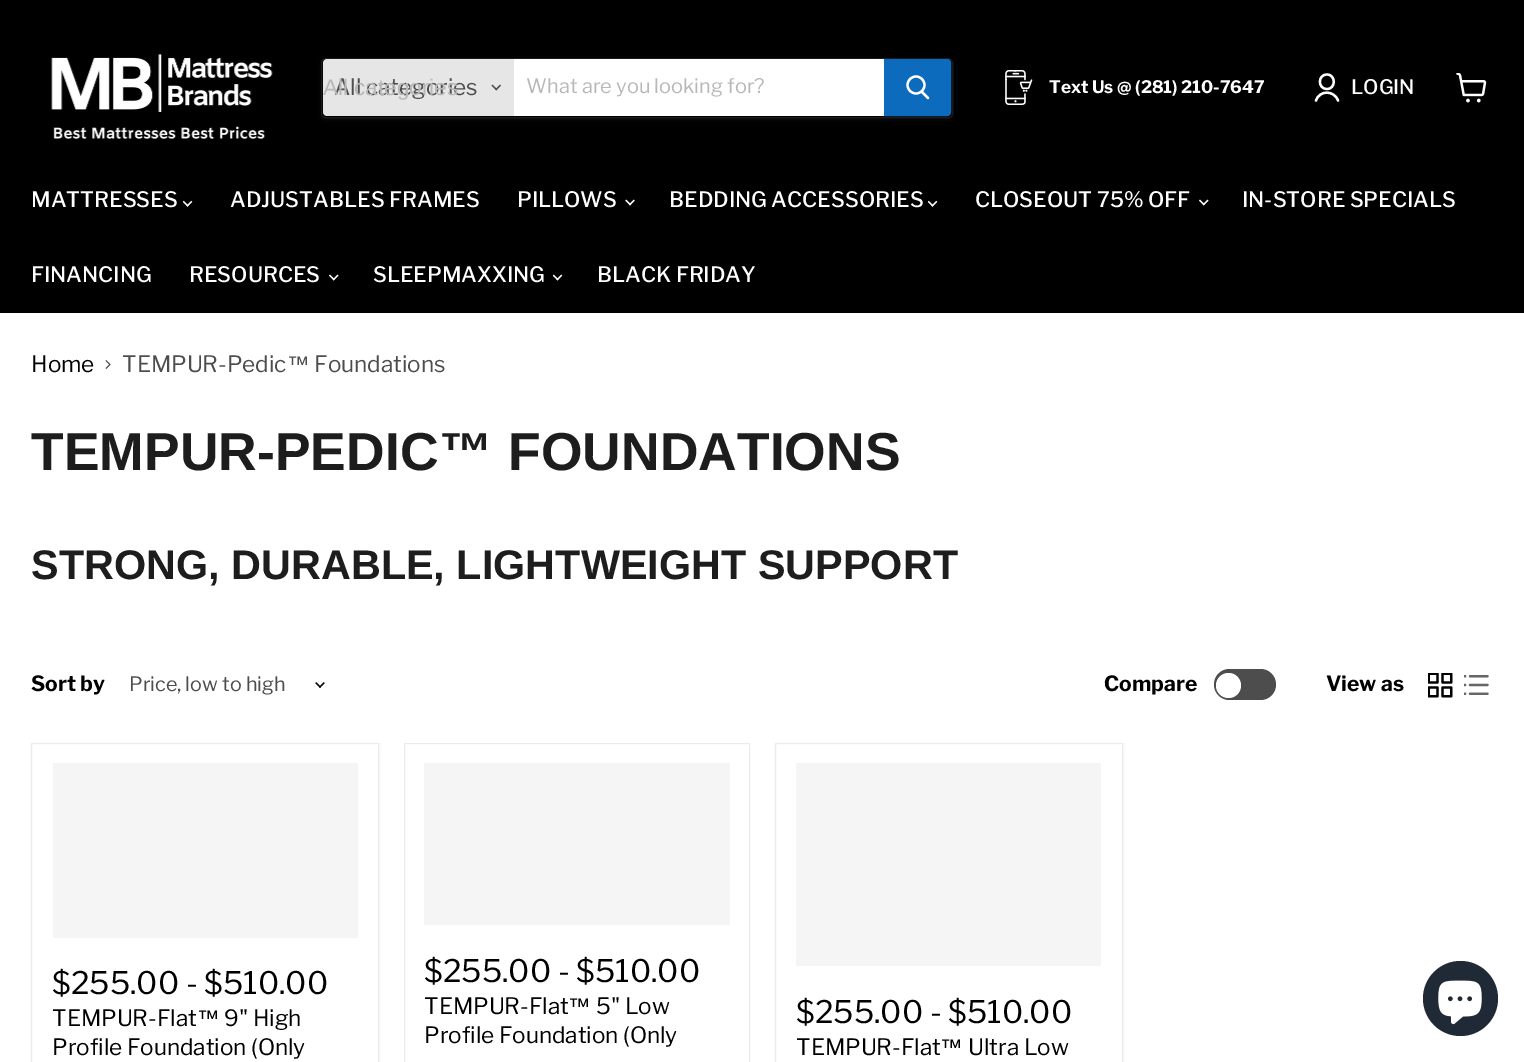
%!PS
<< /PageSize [1524 1062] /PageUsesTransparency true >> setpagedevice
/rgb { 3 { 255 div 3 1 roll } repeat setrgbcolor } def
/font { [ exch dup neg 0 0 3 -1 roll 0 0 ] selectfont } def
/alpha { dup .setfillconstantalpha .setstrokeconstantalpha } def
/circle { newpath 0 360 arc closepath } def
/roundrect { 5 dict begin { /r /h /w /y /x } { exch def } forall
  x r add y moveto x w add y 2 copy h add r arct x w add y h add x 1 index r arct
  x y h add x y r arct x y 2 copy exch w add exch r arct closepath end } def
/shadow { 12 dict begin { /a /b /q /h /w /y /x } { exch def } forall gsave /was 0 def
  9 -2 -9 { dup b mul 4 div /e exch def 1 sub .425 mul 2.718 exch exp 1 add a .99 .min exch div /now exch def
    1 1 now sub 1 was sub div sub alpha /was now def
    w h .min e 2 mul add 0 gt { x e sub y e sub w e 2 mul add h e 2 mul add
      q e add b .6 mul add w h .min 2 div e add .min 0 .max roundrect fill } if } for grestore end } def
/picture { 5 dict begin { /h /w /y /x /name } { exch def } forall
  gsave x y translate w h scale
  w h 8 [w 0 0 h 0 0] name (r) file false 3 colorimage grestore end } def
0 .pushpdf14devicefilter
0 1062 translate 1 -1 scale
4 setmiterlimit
255 255 255 rgb
0 0 1524 1062 rectfill
0 0 0 rgb
0 0 1524 313 rectfill
(img/1.rgb) 51 54 222 85 picture
gsave
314 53 moveto 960 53 lineto 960 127 lineto 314 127 lineto closepath 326 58 moveto 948 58 lineto 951 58 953 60 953 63 curveto 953 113 lineto 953 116 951 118 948 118 curveto 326 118 lineto 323 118 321 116 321 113 curveto 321 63 lineto 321 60 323 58 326 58 curveto closepath eoclip newpath
128 128 128 rgb
321 60 632 60 5 2 0.11 shadow
grestore
0.2 alpha
128 128 128 rgb
321.5 58.5 631 59 4.5 roundrect stroke
1 alpha
230 230 230 rgb
327 59 moveto 514 59 lineto 514 116 lineto 327 116 lineto 325 116 323 114 323 112 curveto 323 63 lineto 323 61 325 59 327 59 curveto closepath fill
(img/2.rgb) 491 84 10 7 picture
255 255 255 rgb
514 59 370 57 rectfill
13 107 190 rgb
884.5 59.5 moveto 947 59.5 lineto 949 59.5 950.5 61 950.5 63 curveto 950.5 112 lineto 950.5 114 949 115.5 947 115.5 curveto 884.5 115.5 lineto closepath gsave fill grestore
stroke
255 255 255 rgb
2.2 setlinewidth
1 setlinecap
928 98 moveto 922 92 lineto stroke
0 setlinecap
916 85 8.5 circle stroke
(img/3.rgb) 1005 70 28 35 picture
2.3 setlinewidth
1 setlinecap
1 setlinejoin
1327 89 moveto 1336 89 1336 74.5 1327 74.5 curveto 1317.5 74.5 1317.5 89 1327 89 curveto closepath 1338 100.5 moveto 1334 90 1319.5 90 1316 100.5 curveto stroke
(img/4.rgb) 1456 73 31 30 picture
(img/5.rgb) 183 200 10 7 picture
(img/6.rgb) 625 199 10 7 picture
(img/5.rgb) 928 200 10 7 picture
(img/7.rgb) 1199 199 10 7 picture
(img/7.rgb) 329 274 10 7 picture
(img/8.rgb) 553 274 10 7 picture
(img/9.rgb) 105 360 6 9 picture
(img/10.rgb) 315 682 10 6 picture
77 77 77 rgb
1214 669 62 31 15.5 roundrect fill
255 255 255 rgb
1228.5 685.5 12.5 circle fill
(img/11.rgb) 1428 673 25 25 picture
(img/12.rgb) 1464 675 25 20 picture
128 128 128 rgb
31 744 348 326 0 2.5 0.11 shadow
255 255 255 rgb
31.5 743.5 moveto 378.5 743.5 lineto 378.5 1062.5 lineto 31.5 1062.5 lineto closepath gsave fill grestore
235 235 235 rgb
1 setlinewidth
0 setlinecap
0 setlinejoin
stroke
245 245 245 rgb
53 763 305 175 rectfill
235 235 235 rgb
404.5 743.5 345 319 rectstroke
245 245 245 rgb
424 763 306 162 rectfill
128 128 128 rgb
775 744 348 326 0 2.5 0.11 shadow
255 255 255 rgb
775.5 743.5 moveto 1122.5 743.5 lineto 1122.5 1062.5 lineto 775.5 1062.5 lineto closepath gsave fill grestore
235 235 235 rgb
stroke
245 245 245 rgb
796 763 305 203 rectfill
32 42 54 rgb
1460.5 998.5 37.5 circle fill
(img/13.rgb) 1438 980 44 45 picture
/LibreFranklin-Regular 22.5 font
77 77 77 rgb
334 95 moveto (All categories) show
/LiberationSans-Regular 22.5 font
184 184 184 rgb
323 95 moveto (All categories) show
/LibreFranklin-Regular 20 font
526 93 moveto (What are you looking for?) show
/LibreFranklin-Bold 17.25 font
255 255 255 rgb
1049 93 moveto (Text Us @ \(281\) 210-7647) show
/LibreFranklin-Medium 20 font
1351 94 moveto (LOGIN) show
/LibreFranklin-Medium 21.25 font
[
  [(MATTRESSES) 31 207]
  [(ADJUSTABLES FRAMES) 230 207]
  [(PILLOWS) 517 207]
  [(BEDDING ACCESSORIES) 669 207]
  [(CLOSEOUT 75% OFF) 975 207]
  [(IN-STORE SPECIALS) 1242 207]
  [(FINANCING) 31 282]
  [(RESOURCES) 189 282]
  [(SLEEPMAXXING) 373 282]
  [(BLACK FRIDAY) 597 282]
] { aload pop moveto show } forall
/LibreFranklin-Regular 22.5 font
0 0 0 rgb
31 372 moveto (Home) show
77 77 77 rgb
122 372 moveto (TEMPUR-Pedic) show
/LiberationSans-Regular 22.5 font
287 372 moveto (™) show
/LibreFranklin-Regular 22.5 font
314 372 moveto (Foundations) show
/Arimo-Bold 53.5 font
29 29 29 rgb
31 470 moveto (TEMPUR-PEDIC) show
/LiberationSans-Bold 53.5 font
439 470 moveto (™) show
/Arimo-Bold 53.5 font
508 470 moveto (FOUNDATIONS) show
/Arimo-Bold 41.4 font
31 579 moveto (STRONG, DURABLE, LIGHTWEIGHT SUPPORT) show
/LibreFranklin-Bold 21 font
0 0 0 rgb
31 691 moveto (Sort by) show
/LibreFranklin-Regular 19.75 font
77 77 77 rgb
129 691 moveto (Price, low to high) show
/LibreFranklin-Bold 21 font
0 0 0 rgb
1104 691 moveto (Compare) show
1326 691 moveto (View as) show
/LibreFranklin-Regular 31 font
52 994 moveto ($255.00 - $510.00) show
/LibreFranklin-Regular 22.5 font
52 1026 moveto (TEMPUR-Flat) show
/LiberationSans-Regular 22.5 font
197 1026 moveto (™) show
/LibreFranklin-Regular 22.5 font
224 1026 moveto (9" High) show
52 1055 moveto (Profile Foundation \(Only) show
/LibreFranklin-Regular 31 font
424 982 moveto ($255.00 - $510.00) show
/LibreFranklin-Regular 22.5 font
424 1014 moveto (TEMPUR-Flat) show
/LiberationSans-Regular 22.5 font
568 1014 moveto (™) show
/LibreFranklin-Regular 22.5 font
596 1014 moveto (5" Low) show
424 1043 moveto (Profile Foundation \(Only) show
/LibreFranklin-Regular 31 font
796 1023 moveto ($255.00 - $510.00) show
/LibreFranklin-Regular 22.5 font
796 1055 moveto (TEMPUR-Flat) show
/LiberationSans-Regular 22.5 font
940 1055 moveto (™) show
/LibreFranklin-Regular 22.5 font
968 1055 moveto (Ultra Low) show
.poppdf14devicefilter showpage
